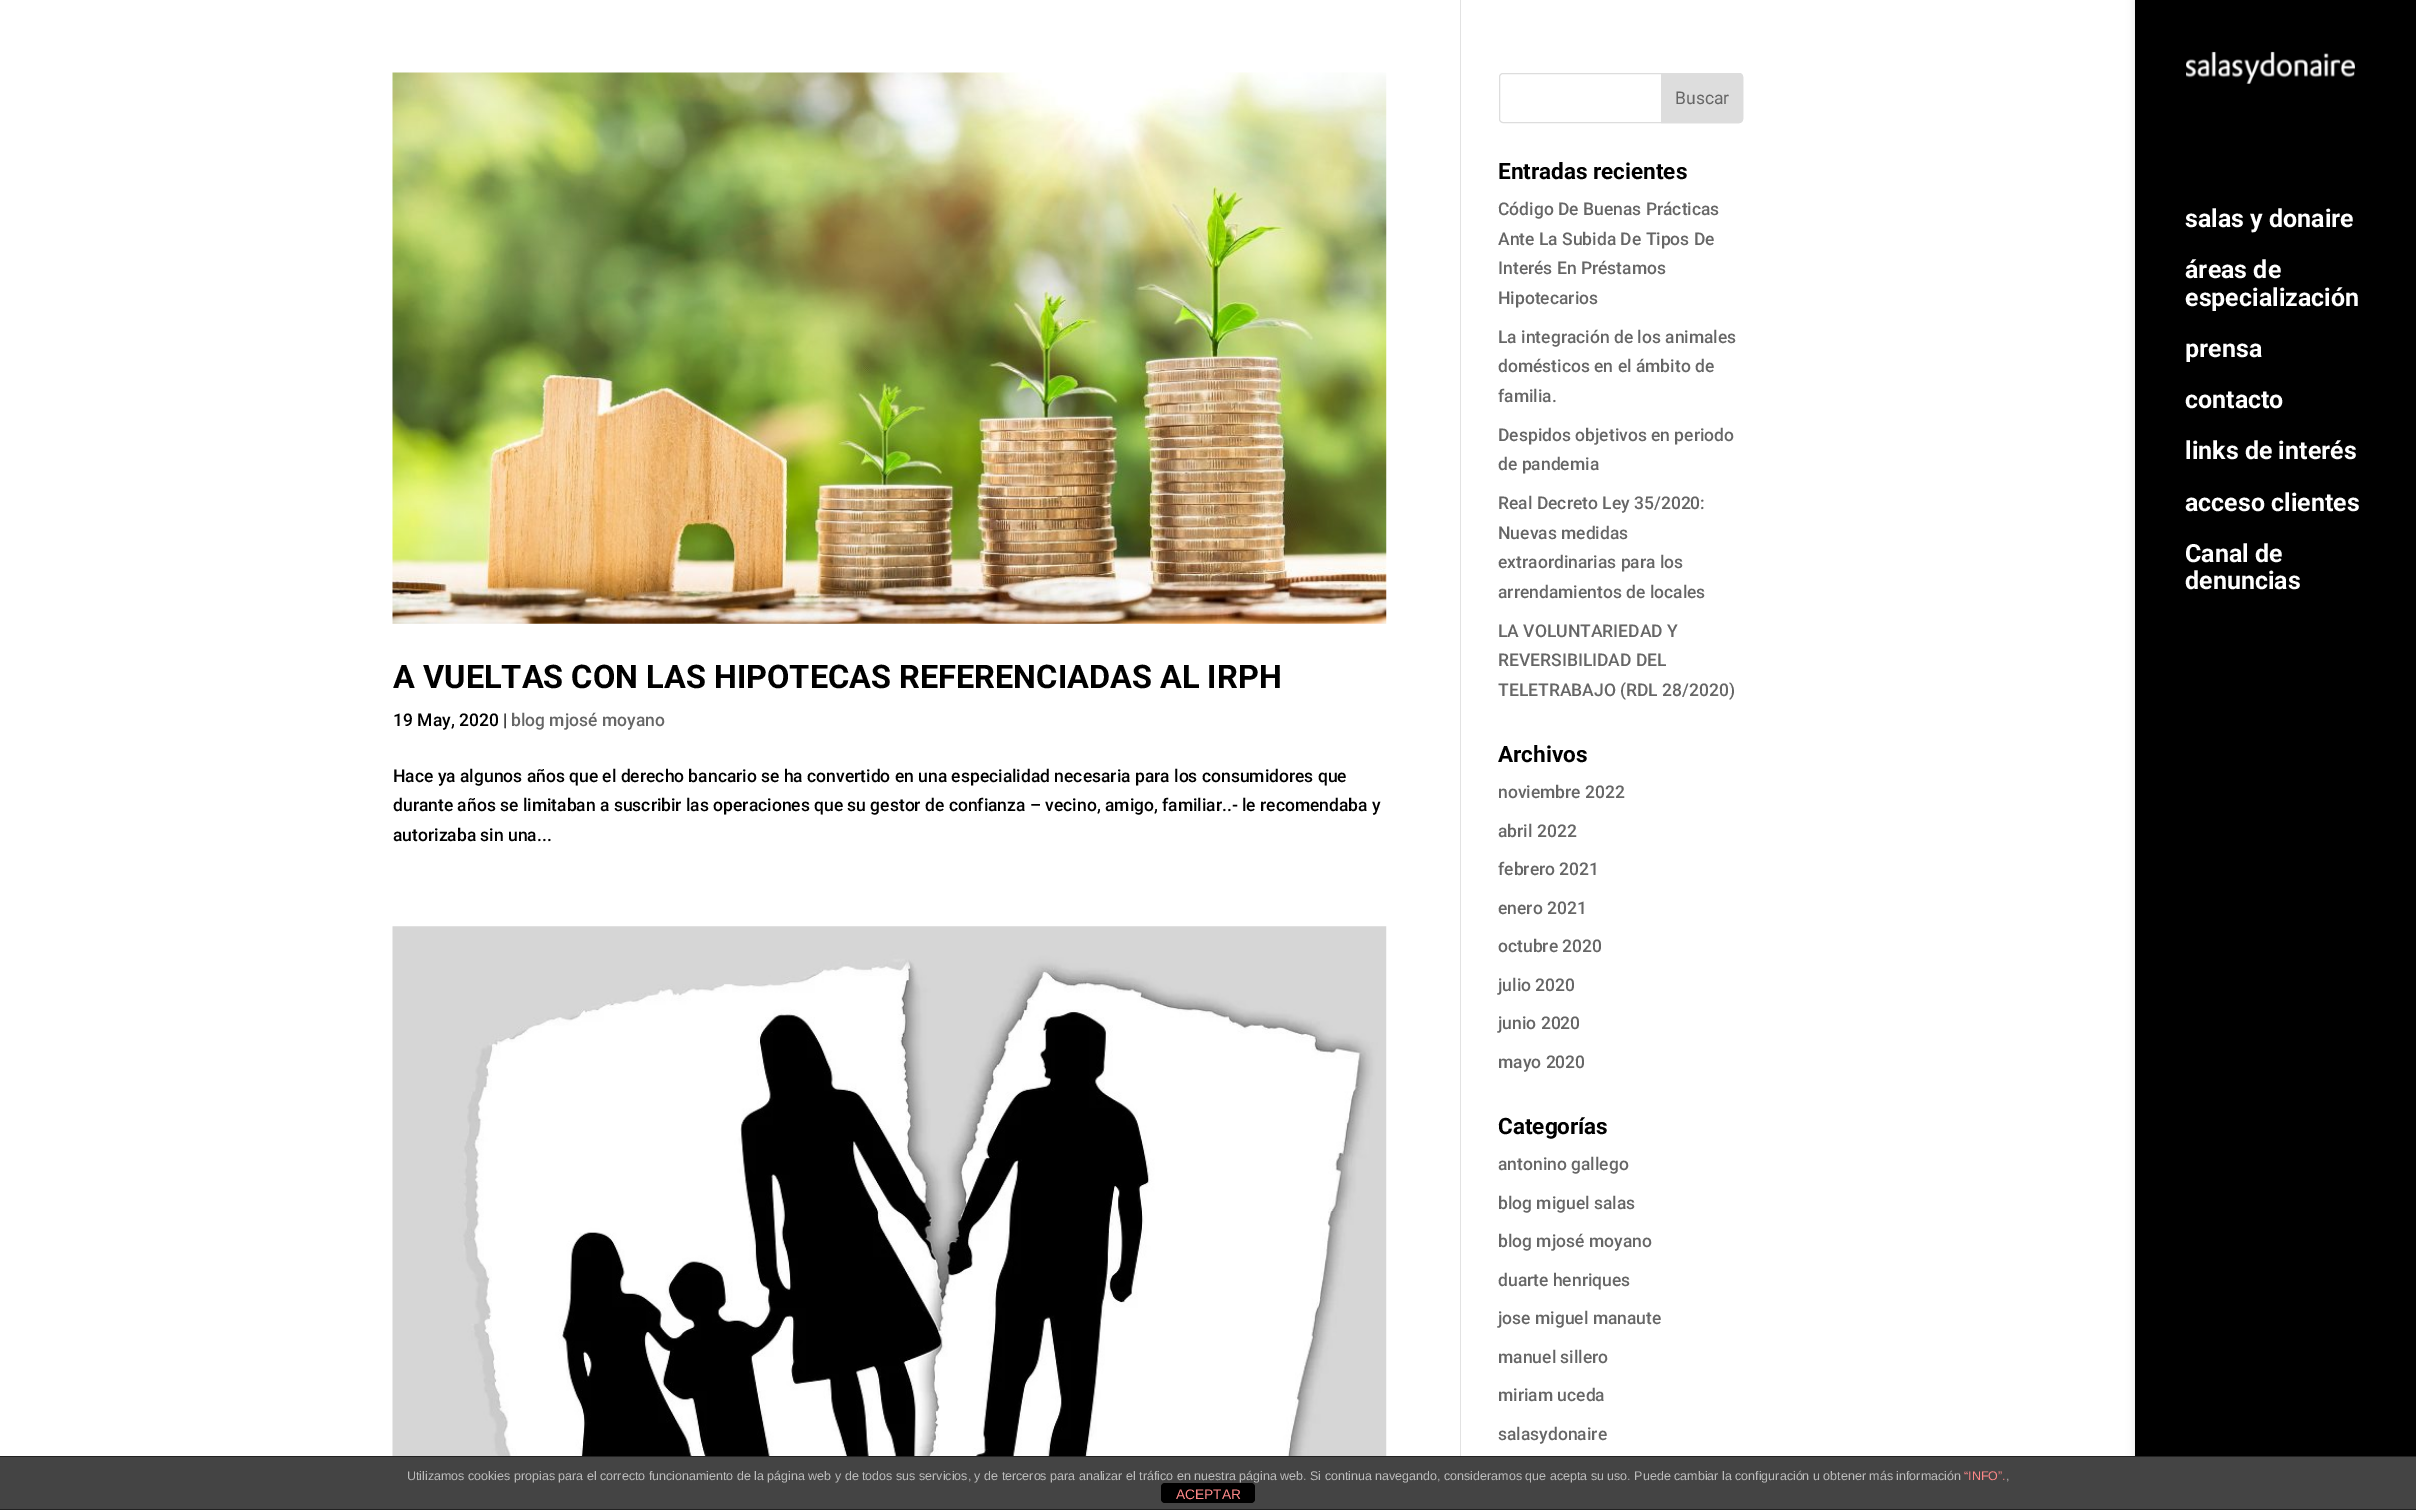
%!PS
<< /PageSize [2416 1510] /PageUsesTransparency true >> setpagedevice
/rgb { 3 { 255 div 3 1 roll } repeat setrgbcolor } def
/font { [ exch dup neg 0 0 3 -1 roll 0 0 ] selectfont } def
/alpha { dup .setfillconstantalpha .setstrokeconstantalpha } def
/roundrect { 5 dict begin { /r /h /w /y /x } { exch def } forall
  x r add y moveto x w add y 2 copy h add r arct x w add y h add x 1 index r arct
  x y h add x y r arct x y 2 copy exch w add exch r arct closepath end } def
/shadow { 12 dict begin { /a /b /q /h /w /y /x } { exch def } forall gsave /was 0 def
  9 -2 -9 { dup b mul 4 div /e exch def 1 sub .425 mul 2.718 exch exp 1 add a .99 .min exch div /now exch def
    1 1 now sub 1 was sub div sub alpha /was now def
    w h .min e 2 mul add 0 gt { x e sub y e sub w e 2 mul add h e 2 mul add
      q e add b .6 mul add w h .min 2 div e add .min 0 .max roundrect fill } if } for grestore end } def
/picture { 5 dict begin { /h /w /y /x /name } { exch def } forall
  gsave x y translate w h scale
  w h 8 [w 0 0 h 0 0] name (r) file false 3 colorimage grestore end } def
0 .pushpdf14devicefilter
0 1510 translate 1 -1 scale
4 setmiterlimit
255 255 255 rgb
0 0 2416 1510 rectfill
226 226 226 rgb
1460 0 1 1456 rectfill
(img/1.rgb) 392 72 995 552 picture
(img/2.rgb) 392 926 995 530 picture
221 221 221 rgb
1499.5 73.5 243 49 3.5 roundrect stroke
1661.5 73.5 moveto 1739 73.5 lineto 1741 73.5 1742.5 75 1742.5 77 curveto 1742.5 119 lineto 1742.5 121 1741 122.5 1739 122.5 curveto 1661.5 122.5 lineto closepath gsave fill grestore
stroke
0 0 0 rgb
2135 0 281 1510 0 4.5 0.1 shadow
2135 0 281 1456 rectfill
(img/3.rgb) 2186 51 169 33 picture
[
  [0 1457 2416 52 68 68 68]
  [0 1456 2416 1 34 34 34]
  [0 1509 2416 1 34 34 34]
] { aload pop rgb rectfill } forall
0 0 0 rgb
1161 1483 94 20 4 roundrect fill
/Roboto-Bold 32.5 font
393 688 moveto (A VUELTAS CON LAS HIPOTECAS REFERENCIADAS AL IRPH) show
/Roboto-Medium 17.5 font
393 726 moveto (19 May, 2020 |) show
102 102 102 rgb
511 726 moveto (blog mjosé moyano) show
0 0 0 rgb
[
  [(Hace ya algunos años que el derecho bancario se ha convertido en una especialidad necesaria para los consumidores que) 393 782]
  [(durante años se limitaban a suscribir las operaciones que su gestor de confianza – vecino, amigo, familiar..- le recomendaba y) 393 811]
  [(autorizaba sin una...) 393 841]
] { aload pop moveto show } forall
/Roboto-Regular 17.5 font
102 102 102 rgb
1675 104 moveto (Buscar) show
/Roboto-Bold 22.5 font
0 0 0 rgb
1498 179 moveto (Entradas recientes) show
/Roboto-Medium 17.5 font
102 102 102 rgb
[
  [(Código De Buenas Prácticas) 1498 215]
  [(Ante La Subida De Tipos De) 1498 245]
  [(Interés En Préstamos) 1498 274]
  [(Hipotecarios) 1498 304]
  [(La integración de los animales) 1498 343]
  [(domésticos en el ámbito de) 1498 372]
  [(familia.) 1498 402]
  [(Despidos objetivos en periodo) 1498 441]
  [(de pandemia) 1498 470]
  [(Real Decreto Ley 35/2020:) 1498 509]
  [(Nuevas medidas) 1498 539]
  [(extraordinarias para los) 1498 568]
  [(arrendamientos de locales) 1498 598]
  [(LA VOLUNTARIEDAD Y) 1498 637]
  [(REVERSIBILIDAD DEL) 1498 666]
  [(TELETRABAJO \(RDL 28/2020\)) 1498 696]
] { aload pop moveto show } forall
/Roboto-Bold 22.5 font
0 0 0 rgb
1498 762 moveto (Archivos) show
/Roboto-Medium 17.5 font
102 102 102 rgb
[
  [(noviembre 2022) 1498 798]
  [(abril 2022) 1498 837]
  [(febrero 2021) 1498 875]
  [(enero 2021) 1498 914]
  [(octubre 2020) 1498 952]
  [(julio 2020) 1498 991]
  [(junio 2020) 1498 1029]
  [(mayo 2020) 1498 1068]
] { aload pop moveto show } forall
/Roboto-Bold 22.5 font
0 0 0 rgb
1498 1134 moveto (Categorías) show
/Roboto-Medium 17.5 font
102 102 102 rgb
[
  [(antonino gallego) 1498 1170]
  [(blog miguel salas) 1498 1209]
  [(blog mjosé moyano) 1498 1247]
  [(duarte henriques) 1498 1286]
  [(jose miguel manaute) 1498 1324]
  [(manuel sillero) 1498 1363]
  [(miriam uceda) 1498 1401]
  [(salasydonaire) 1498 1440]
] { aload pop moveto show } forall
/Roboto-Bold 25 font
255 255 255 rgb
[
  [(salas y donaire) 2185 227]
  [(áreas de) 2185 278]
  [(especialización) 2185 306]
  [(prensa) 2185 357]
  [(contacto) 2185 408]
  [(links de interés) 2185 459]
  [(acceso clientes) 2185 511]
  [(Canal de) 2185 562]
  [(denuncias) 2185 589]
] { aload pop moveto show } forall
/LiberationSans-Regular 12.5 font
187 187 187 rgb
407 1480 moveto (Utilizamos cookies propias para el correcto funcionamiento de la página web y de todos sus servicios, y de terceros para analizar el tráfico en nuestra página web. Si continua navegando, consideramos que acepta su uso. Puede cambiar la configuración u obtener más información) show
255 136 136 rgb
1964 1480 moveto (“INFO”.) show
187 187 187 rgb
2006 1480 moveto (,) show
/LiberationSans-Regular 13.75 font
255 136 136 rgb
1176 1499 moveto (ACEPTAR) show
.poppdf14devicefilter showpage
